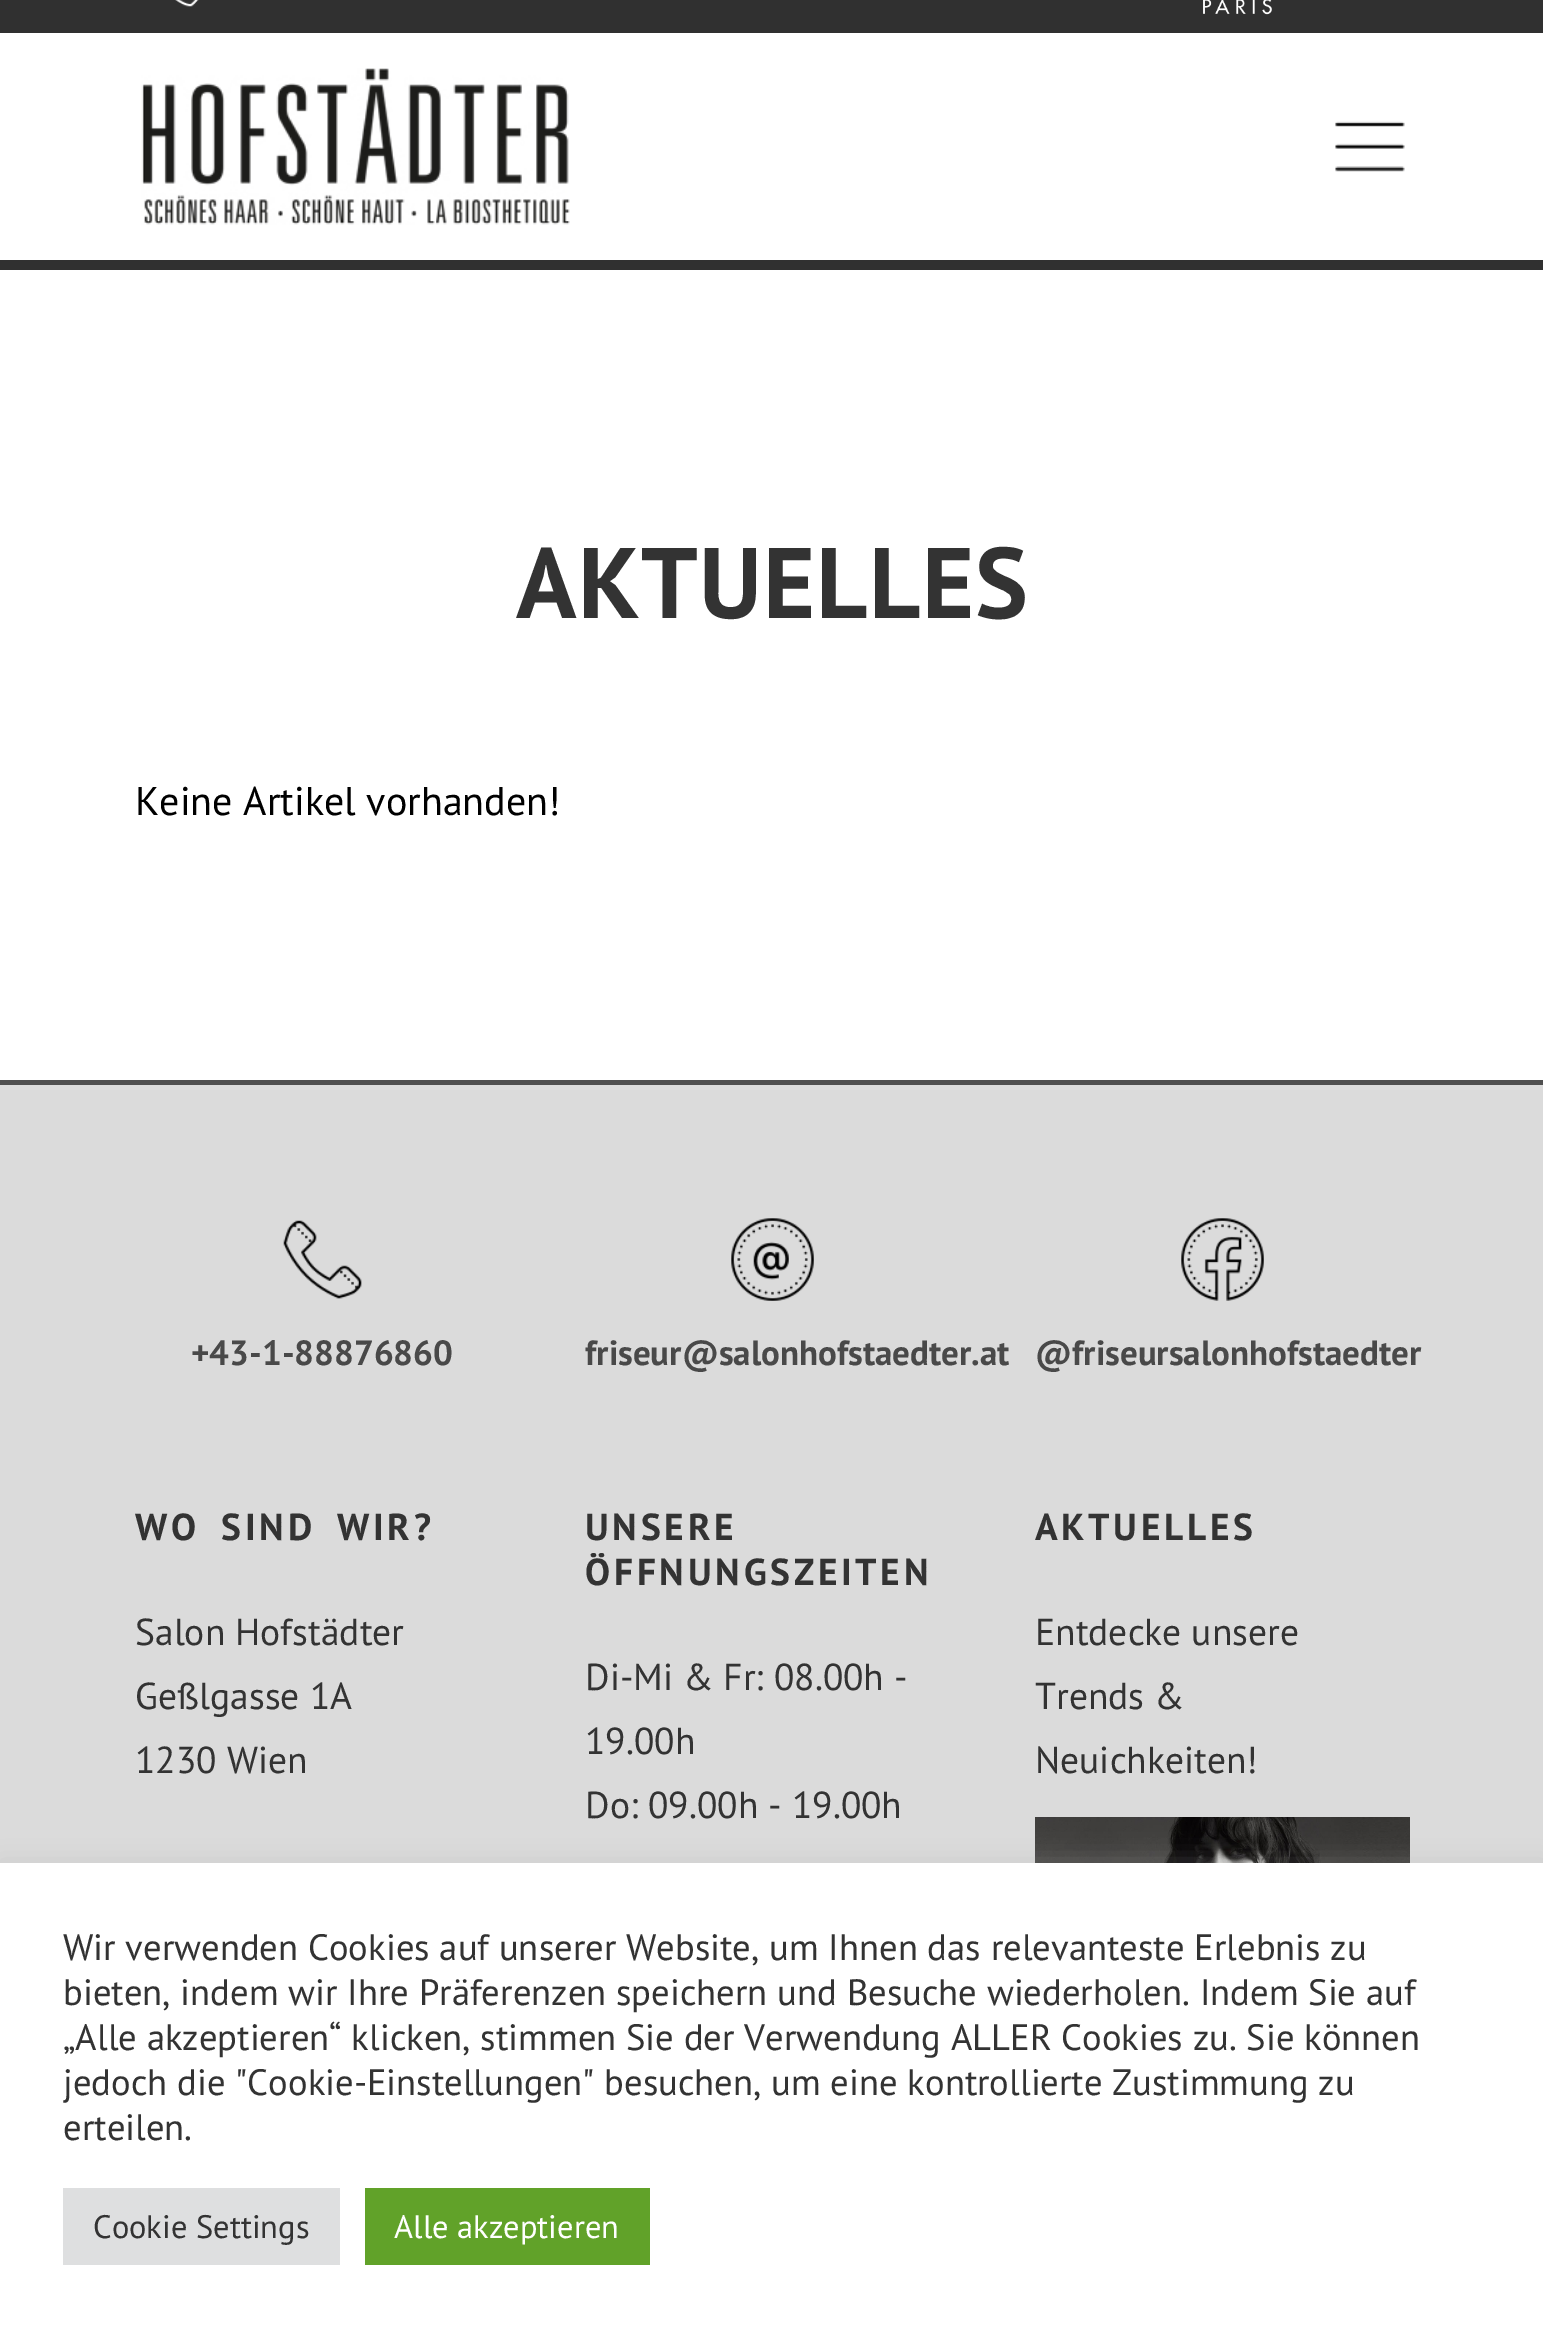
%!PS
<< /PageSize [1543 2339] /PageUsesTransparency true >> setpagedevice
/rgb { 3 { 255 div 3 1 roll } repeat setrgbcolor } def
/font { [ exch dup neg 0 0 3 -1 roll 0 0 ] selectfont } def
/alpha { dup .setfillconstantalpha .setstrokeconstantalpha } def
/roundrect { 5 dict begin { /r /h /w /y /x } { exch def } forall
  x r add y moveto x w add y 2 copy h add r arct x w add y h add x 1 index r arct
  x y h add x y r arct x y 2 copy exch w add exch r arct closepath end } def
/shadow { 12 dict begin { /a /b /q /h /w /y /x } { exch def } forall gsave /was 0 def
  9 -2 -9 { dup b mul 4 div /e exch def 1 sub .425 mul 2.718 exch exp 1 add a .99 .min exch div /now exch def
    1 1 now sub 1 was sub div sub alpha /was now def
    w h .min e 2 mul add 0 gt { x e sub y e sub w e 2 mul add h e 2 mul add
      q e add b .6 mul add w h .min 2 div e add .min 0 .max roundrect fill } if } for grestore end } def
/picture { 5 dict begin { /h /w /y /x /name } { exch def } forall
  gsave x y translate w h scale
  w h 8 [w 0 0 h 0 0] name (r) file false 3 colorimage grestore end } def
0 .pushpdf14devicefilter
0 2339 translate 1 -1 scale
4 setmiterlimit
48 48 48 rgb
0 0 1543 2339 rectfill
(img/1.rgb) 175 0 24 7 picture
(img/2.rgb) 1203 0 69 15 picture
255 255 255 rgb
0 33 1543 227 rectfill
(img/3.rgb) 141 68 429 157 picture
(img/4.rgb) 1335 121 70 51 picture
[
  [0 270 1543 810 255 255 255]
  [0 1085 1543 778 219 219 219]
  [0 1080 1543 5 79 79 79]
] { aload pop rgb rectfill } forall
(img/5.rgb) 283 1220 79 79 picture
(img/6.rgb) 731 1218 83 83 picture
(img/7.rgb) 1181 1218 83 83 picture
(img/8.rgb) 1035 1817 375 46 picture
172 171 171 rgb
0 1860 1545 478 0 12.5 0.3 shadow
[
  [0 1863 1543 476 255 255 255]
  [63 2188 277 77 222 223 224]
  [365 2188 285 77 97 162 41]
] { aload pop rgb rectfill } forall
/PTSans-Bold 100 font
51 51 51 rgb
516 618 moveto 1.25 0 (AKTUELLES) ashow
/PTSans-Regular 40 font
0 0 0 rgb
135 815 moveto (Keine Artikel vorhanden!) show
/PTSans-Bold 35 font
73 73 73 rgb
[
  [(+43-1-88876860) 191 1365]
  [(friseur@salonhofstaedter.at) 585 1365]
  [(@friseursalonhofstaedter) 1035 1365]
] { aload pop moveto show } forall
/PTSans-Bold 37.5 font
51 51 51 rgb
135 1540 moveto 8 0 32 3.75 0 (WO SIND WIR?) awidthshow
/PTSans-Regular 37.5 font
[
  [(Salon Hofstädter) 135 1645]
  [(Geßlgasse 1A) 135 1709]
  [(1230 Wien) 135 1773]
] { aload pop moveto show } forall
/PTSans-Bold 37.5 font
585 1540 moveto 3.75 0 (UNSERE) ashow
585 1585 moveto 3.75 0 (ÖFFNUNGSZEITEN) ashow
/PTSans-Regular 37.5 font
[
  [(Di-Mi & Fr: 08.00h -) 585 1690]
  [(19.00h) 585 1754]
  [(Do: 09.00h - 19.00h) 585 1818]
] { aload pop moveto show } forall
/PTSans-Bold 37.5 font
1035 1540 moveto 3.75 0 (AKTUELLES) ashow
/PTSans-Regular 37.5 font
[
  [(Entdecke unsere) 1035 1645]
  [(Trends &) 1035 1709]
  [(Neuichkeiten!) 1035 1773]
] { aload pop moveto show } forall
/PTSans-Regular 36.65 font
[
  [(Wir verwenden Cookies auf unserer Website, um Ihnen das relevanteste Erlebnis zu) 63 1960]
  [(bieten, indem wir Ihre Präferenzen speichern und Besuche wiederholen. Indem Sie auf) 63 2005]
  [(„Alle akzeptieren“ klicken, stimmen Sie der Verwendung ALLER Cookies zu. Sie können) 63 2050]
  [(jedoch die "Cookie-Einstellungen" besuchen, um eine kontrollierte Zustimmung zu) 63 2095]
  [(erteilen.) 63 2140]
] { aload pop moveto show } forall
/PTSans-Regular 32.5 font
93 2238 moveto (Cookie Settings) show
255 255 255 rgb
394 2238 moveto (Alle akzeptieren) show
.poppdf14devicefilter showpage
